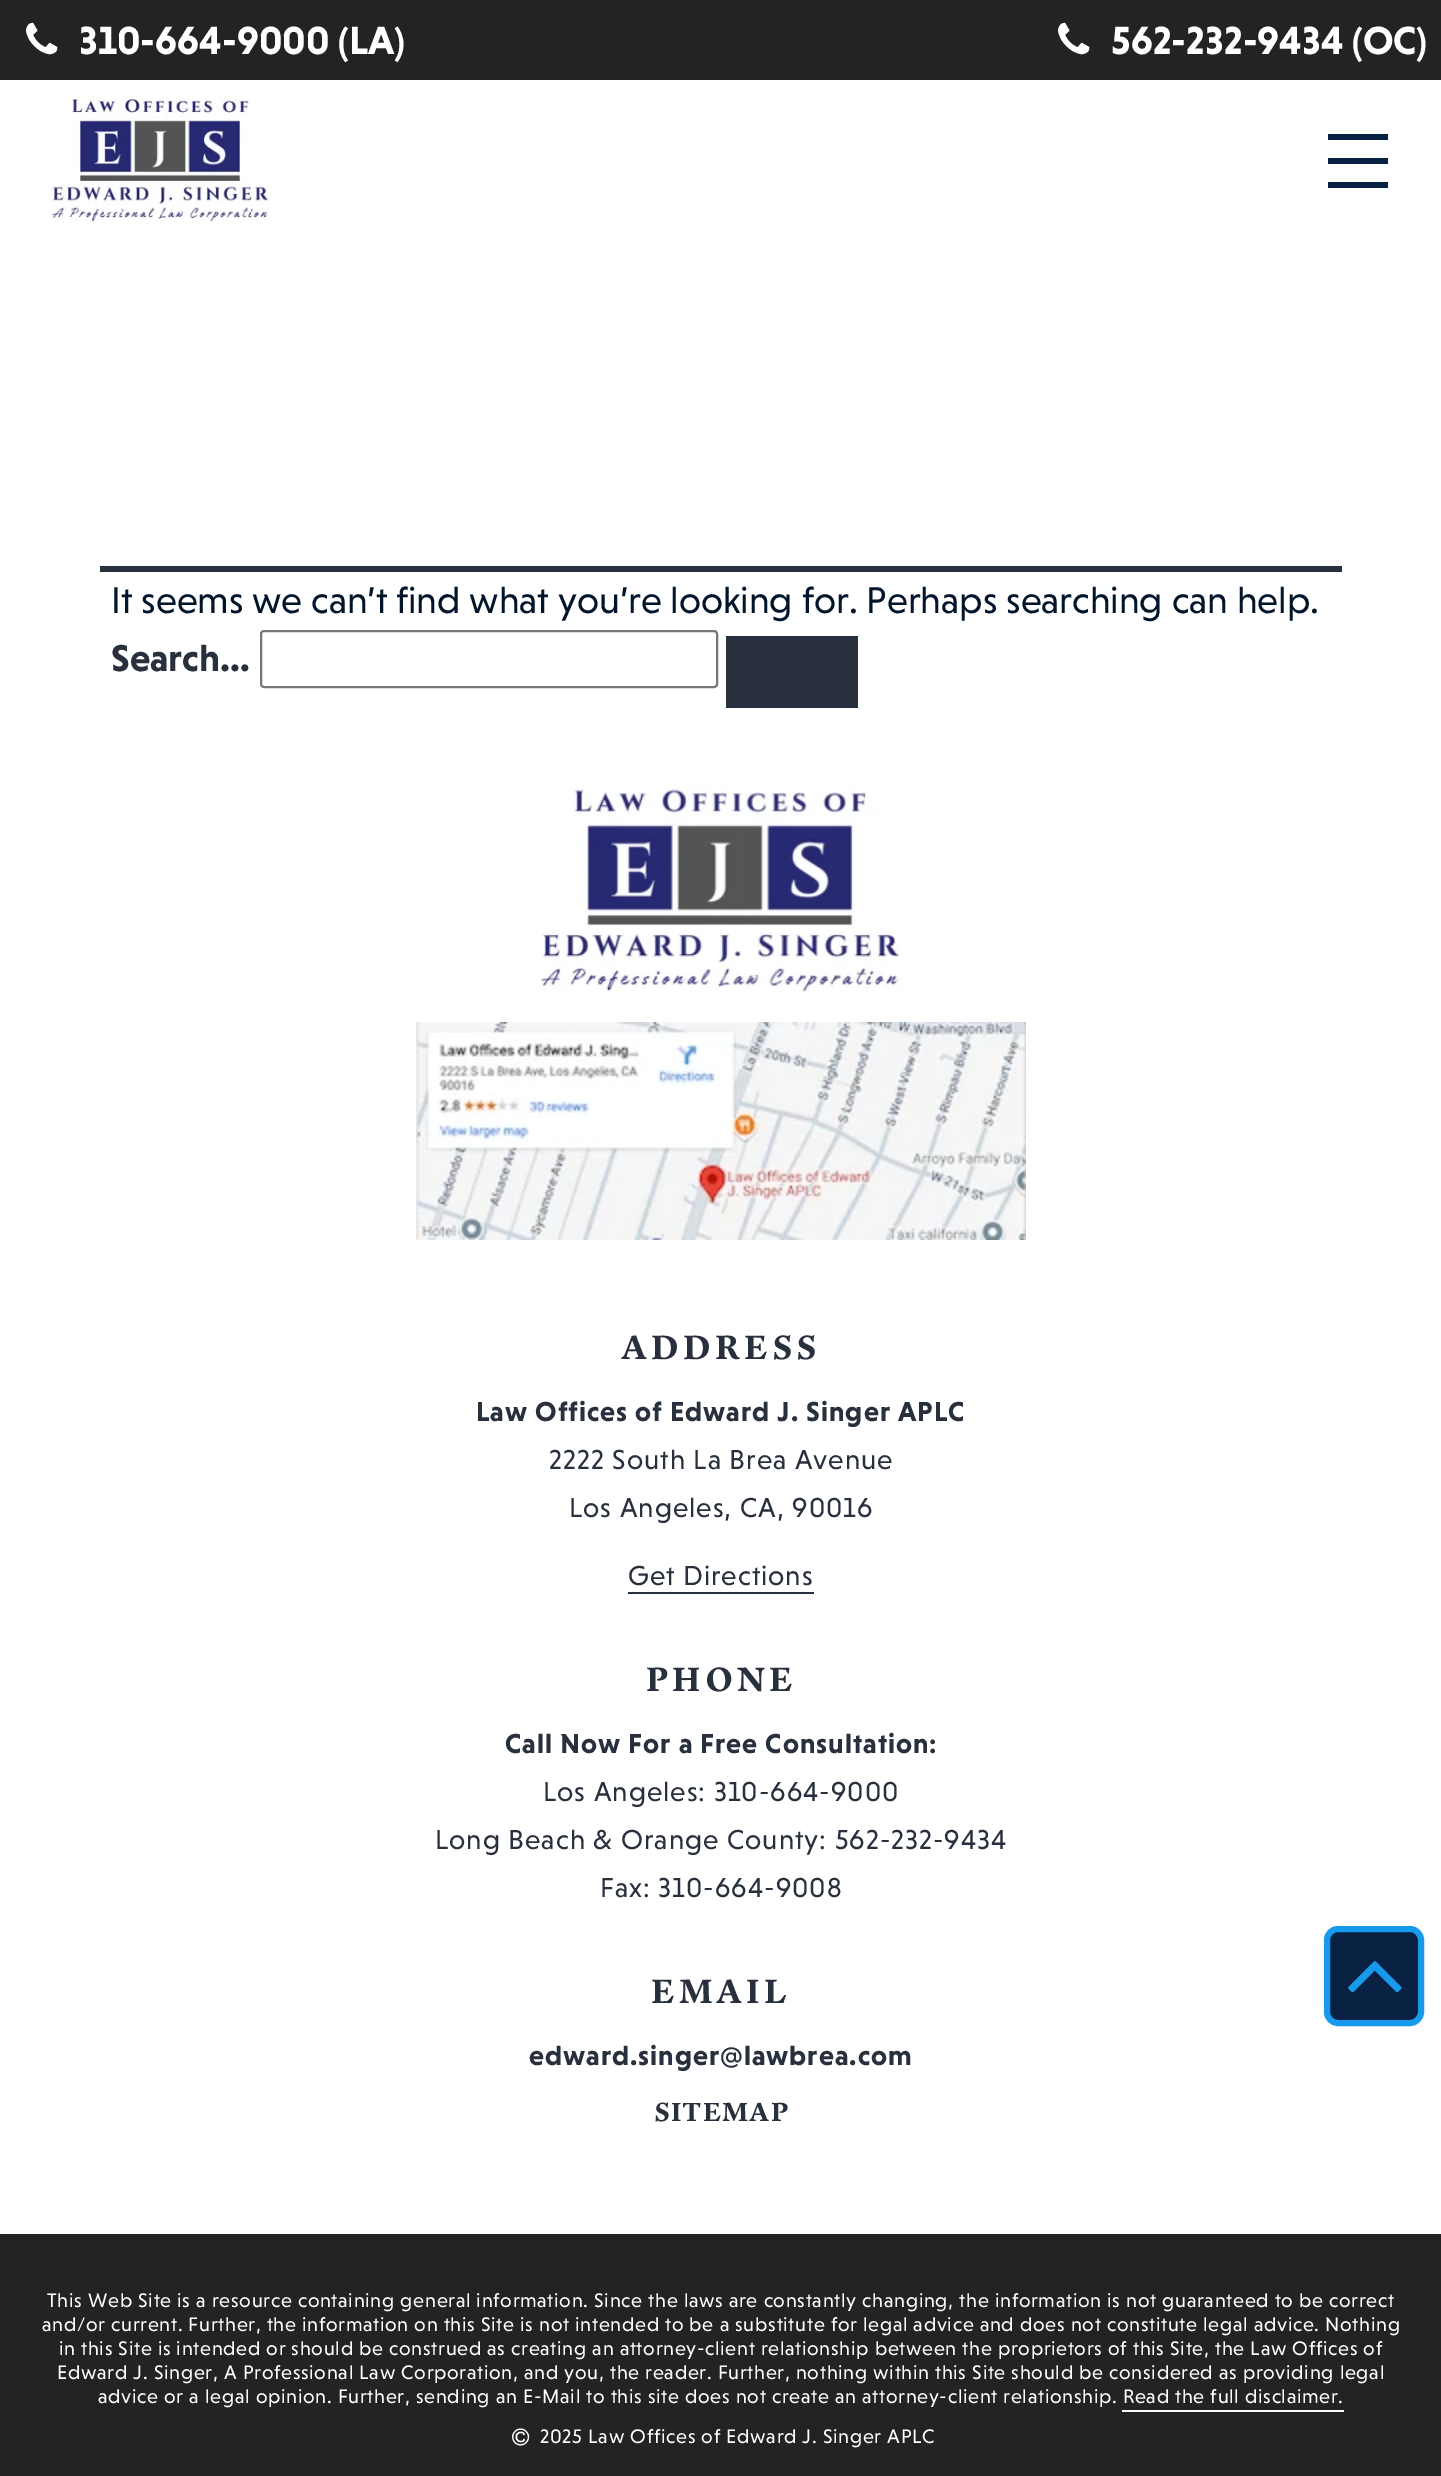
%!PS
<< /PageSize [1441 2476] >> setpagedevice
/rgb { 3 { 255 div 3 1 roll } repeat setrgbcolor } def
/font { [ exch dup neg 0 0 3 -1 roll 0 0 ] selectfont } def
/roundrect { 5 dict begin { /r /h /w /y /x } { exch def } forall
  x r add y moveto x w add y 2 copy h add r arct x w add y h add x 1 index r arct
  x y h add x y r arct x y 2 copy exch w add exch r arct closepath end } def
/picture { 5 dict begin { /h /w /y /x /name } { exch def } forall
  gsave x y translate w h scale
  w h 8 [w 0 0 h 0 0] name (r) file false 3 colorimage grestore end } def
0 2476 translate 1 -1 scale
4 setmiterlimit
255 255 255 rgb
0 0 1441 2476 rectfill
34 35 34 rgb
0 0 1441 80 rectfill
(img/1.rgb) 26 22 32 33 picture
(img/1.rgb) 1058 22 32 33 picture
(img/2.rgb) 51 95 220 127 picture
9 34 68 rgb
1328 134 moveto 1388 134 lineto 1388 140 lineto 1328 140 lineto closepath 1328 158 moveto 1388 158 lineto 1388 164 lineto 1328 164 lineto closepath 1388 182 moveto 1328 182 lineto 1328 188 lineto 1388 188 lineto closepath eofill
40 48 61 rgb
100 566 1242 6 rectfill
118 118 118 rgb
2 setlinewidth
261 631 456 56 3 roundrect stroke
40 48 61 rgb
726 636 132 72 rectfill
(img/3.rgb) 540 786 364 207 picture
(img/4.rgb) 416 1022 610 218 picture
628 1592 186 2 rectfill
9 34 68 rgb
1327 1929 94 94 11 roundrect gsave fill grestore
23 153 236 rgb
6 setlinewidth
stroke
(img/5.rgb) 1348 1961 54 32 picture
34 35 34 rgb
0 2234 1441 242 rectfill
255 255 255 rgb
1122 2410 222 2 rectfill
(img/6.rgb) 512 2428 18 18 picture
/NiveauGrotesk-Bold 40 font
79 54 moveto (310-664-9000 \(LA\)) show
1111 54 moveto (562-232-9434 \(OC\)) show
/NiveauGrotesk-Regular 38 font
2 21 42 rgb
111 613 moveto (It seems we can’t find what you’re looking for. Perhaps searching can help.) show
/NiveauGrotesk-Bold 38 font
40 48 61 rgb
111 671 moveto (Search…) show
/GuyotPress-Bold 36 font
621 1359 moveto 4 0 (ADDRESS) ashow
/NiveauGrotesk-Bold 28 font
476 1421 moveto 1 0 (Law Offices of Edward J. Singer APLC) ashow
/NiveauGrotesk-Regular 28 font
549 1469 moveto 1 0 (2222 South La Brea Avenue) ashow
569 1517 moveto 1 0 (Los Angeles, CA, 90016) ashow
628 1585 moveto 1 0 (Get Directions) ashow
/GuyotPress-Bold 36 font
646 1691 moveto 4 0 (PHONE) ashow
/NiveauGrotesk-Bold 28 font
505 1753 moveto 1 0 (Call Now For a Free Consultation:) ashow
/NiveauGrotesk-Regular 28 font
543 1801 moveto 1 0 (Los Angeles: 310-664-9000) ashow
435 1849 moveto 1 0 (Long Beach & Orange County: 562-232-9434) ashow
600 1897 moveto 1 0 (Fax: 310-664-9008) ashow
/GuyotPress-Bold 36 font
651 2003 moveto 4 0 (EMAIL) ashow
/NiveauGrotesk-Bold 28 font
529 2065 moveto 1 0 (edward.singer@lawbrea.com) ashow
/GuyotPress-Bold 28 font
654 2121 moveto 1 0 (SITEMAP) ashow
/NiveauGrotesk-Regular 20 font
255 255 255 rgb
47 2307 moveto 0.72 0 (This Web Site is a resource containing general information. Since the laws are constantly changing, the information is not guaranteed to be correct) ashow
42 2331 moveto 0.72 0 (and/or current. Further, the information on this Site is not intended to be a substitute for legal advice and does not constitute legal advice. Nothing) ashow
59 2355 moveto 0.72 0 (in this Site is intended or should be construed as creating an attorney-client relationship between the proprietors of this Site, the Law Offices of) ashow
57 2379 moveto 0.72 0 (Edward J. Singer, A Professional Law Corporation, and you, the reader. Further, nothing within this Site should be considered as providing legal) ashow
98 2403 moveto 0.72 0 (advice or a legal opinion. Further, sending an E-Mail to this site does not create an attorney-client relationship. Read the full disclaimer.) ashow
540 2443 moveto 0.72 0 (2025 Law Offices of Edward J. Singer APLC) ashow
showpage
